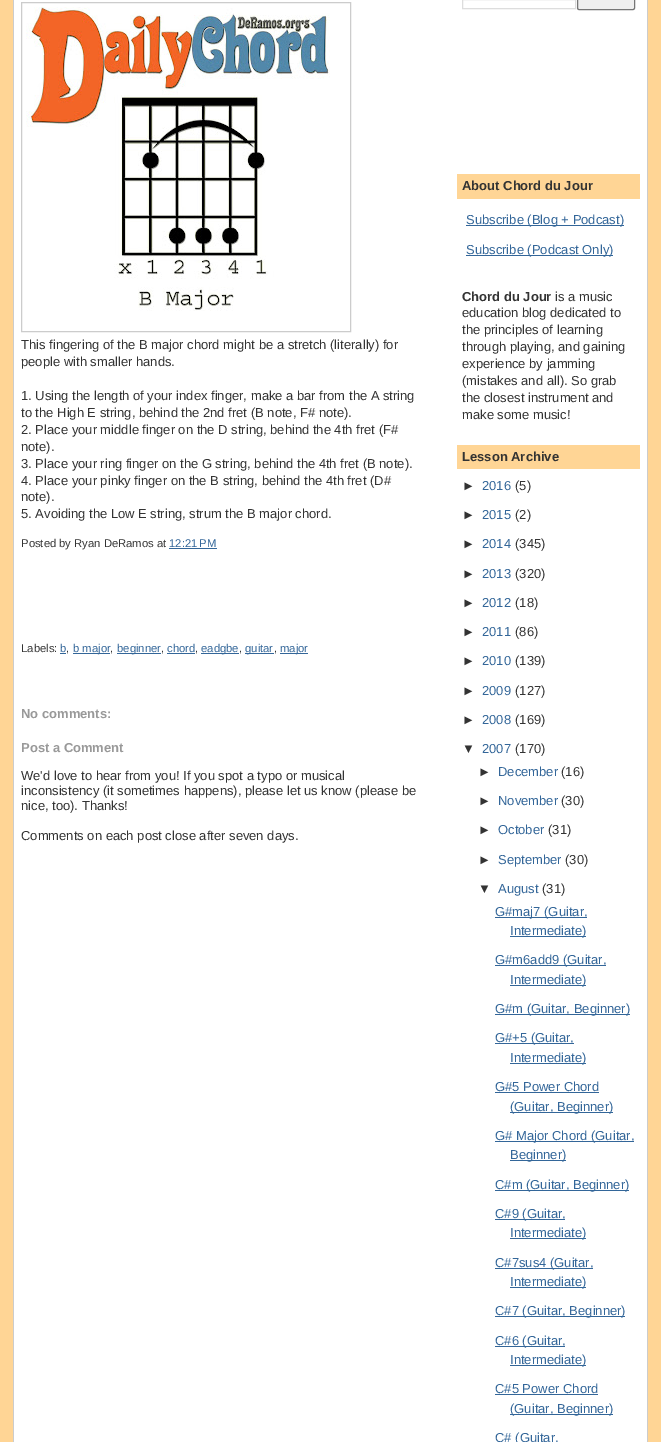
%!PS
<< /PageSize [661 1442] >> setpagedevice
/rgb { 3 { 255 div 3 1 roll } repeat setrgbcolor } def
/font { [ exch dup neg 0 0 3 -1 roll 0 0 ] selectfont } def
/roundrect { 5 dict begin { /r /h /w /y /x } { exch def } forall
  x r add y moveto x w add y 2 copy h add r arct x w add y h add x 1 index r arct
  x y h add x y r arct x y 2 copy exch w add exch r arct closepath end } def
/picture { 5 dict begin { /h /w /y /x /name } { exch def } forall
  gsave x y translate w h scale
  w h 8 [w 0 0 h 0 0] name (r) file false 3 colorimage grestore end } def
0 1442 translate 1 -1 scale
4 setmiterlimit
255 213 149 rgb
0 0 661 1442 rectfill
[
  [14 0 633 1442 255 255 255]
  [647 0 1 1442 204 204 204]
  [13 0 1 1442 204 204 204]
] { aload pop rgb rectfill } forall
21.5 2.5 329 329 rectstroke
(img/1.rgb) 26 7 304 304 picture
[
  [169 548 48 1 51 102 153]
  [60 653 6 1 51 102 153]
  [73 653 37 1 51 102 153]
  [117 653 44 1 51 102 153]
  [167 653 28 1 51 102 153]
  [201 653 38 1 51 102 153]
  [245 653 29 1 51 102 153]
  [280 653 28 1 51 102 153]
] { aload pop rgb rectfill } forall
221 221 221 rgb
462.5 -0.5 113 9 rectstroke
239 239 239 rgb
577.5 -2.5 57 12 1.5 roundrect gsave fill grestore
118 118 118 rgb
stroke
[
  [457 174 183 25 255 213 149]
  [466 225 158 1 51 102 153]
  [466 255 147 1 51 102 153]
  [457 445 183 24 255 213 149]
  [495 917 92 1 51 102 153]
  [510 936 76 1 51 102 153]
  [495 965 111 1 51 102 153]
  [510 985 76 1 51 102 153]
  [495 1014 135 1 51 102 153]
  [495 1043 79 1 51 102 153]
  [510 1063 76 1 51 102 153]
  [495 1092 104 1 51 102 153]
  [510 1112 103 1 51 102 153]
  [495 1141 139 1 51 102 153]
  [510 1160 56 1 51 102 153]
  [495 1190 134 1 51 102 153]
  [495 1219 70 1 51 102 153]
  [510 1238 76 1 51 102 153]
  [495 1268 98 1 51 102 153]
  [510 1287 76 1 51 102 153]
  [495 1316 130 1 51 102 153]
  [495 1346 70 1 51 102 153]
  [510 1365 76 1 51 102 153]
  [495 1394 103 1 51 102 153]
  [510 1414 103 1 51 102 153]
] { aload pop rgb rectfill } forall
/LiberationSans-Regular 13 font
51 51 51 rgb
[
  [(This fingering of the B major chord might be a stretch \(literally\) for) 21 349]
  [(people with smaller hands.) 21 366]
  [(1. Using the length of your index finger, make a bar from the A string) 21 400]
  [(to the High E string, behind the 2nd fret \(B note, F# note\).) 21 417]
  [(2. Place your middle finger on the D string, behind the 4th fret \(F#) 21 434]
  [(note\).) 21 451]
  [(3. Place your ring finger on the G string, behind the 4th fret \(B note\).) 21 468]
  [(4. Place your pinky finger on the B string, behind the 4th fret \(D#) 21 485]
  [(note\).) 21 501]
  [(5. Avoiding the Low E string, strum the B major chord.) 21 518]
] { aload pop moveto show } forall
/LiberationSans-Regular 11.25 font
21 547 moveto (Posted by Ryan DeRamos at) show
51 102 153 rgb
169 547 moveto (12:21 PM) show
51 51 51 rgb
21 652 moveto (Labels:) show
51 102 153 rgb
60 652 moveto (b) show
51 51 51 rgb
66 652 moveto (,) show
51 102 153 rgb
73 652 moveto (b major) show
51 51 51 rgb
110 652 moveto (,) show
51 102 153 rgb
117 652 moveto (beginner) show
51 51 51 rgb
161 652 moveto (,) show
51 102 153 rgb
167 652 moveto (chord) show
51 51 51 rgb
195 652 moveto (,) show
51 102 153 rgb
201 652 moveto (eadgbe) show
51 51 51 rgb
239 652 moveto (,) show
51 102 153 rgb
245 652 moveto (guitar) show
51 51 51 rgb
274 652 moveto (,) show
51 102 153 rgb
280 652 moveto (major) show
/LiberationSans-Bold 13 font
153 153 153 rgb
21 718 moveto (No comments:) show
21 752 moveto (Post a Comment) show
/LiberationSans-Regular 13 font
51 51 51 rgb
[
  [(We'd love to hear from you! If you spot a typo or musical) 21 780]
  [(inconsistency \(it sometimes happens\), please let us know \(please be) 21 795]
  [(nice, too\). Thanks!) 21 810]
  [(Comments on each post close after seven days.) 21 840]
] { aload pop moveto show } forall
/LiberationSans-Bold 13 font
462 190 moveto (About Chord du Jour) show
/LiberationSans-Regular 13 font
51 102 153 rgb
466 224 moveto (Subscribe \(Blog + Podcast\)) show
466 254 moveto (Subscribe \(Podcast Only\)) show
/LiberationSans-Bold 13 font
51 51 51 rgb
462 301 moveto (Chord du Jour) show
/LiberationSans-Regular 13 font
[
  [(is a music) 555 301]
  [(education blog dedicated to) 462 317]
  [(the principles of learning) 462 334]
  [(through playing, and gaining) 462 351]
  [(experience by jamming) 462 368]
  [(\(mistakes and all\). So grab) 462 385]
  [(the closest instrument and) 462 402]
  [(make some music!) 462 419]
] { aload pop moveto show } forall
/LiberationSans-Bold 13 font
462 461 moveto (Lesson Archive) show
/LiberationSans-Regular 13 font
462 490 moveto (►) show
51 102 153 rgb
482 490 moveto (2016) show
51 51 51 rgb
515 490 moveto (\(5\)) show
462 519 moveto (►) show
51 102 153 rgb
482 519 moveto (2015) show
51 51 51 rgb
515 519 moveto (\(2\)) show
462 548 moveto (►) show
51 102 153 rgb
482 548 moveto (2014) show
51 51 51 rgb
515 548 moveto (\(345\)) show
462 578 moveto (►) show
51 102 153 rgb
482 578 moveto (2013) show
51 51 51 rgb
515 578 moveto (\(320\)) show
462 607 moveto (►) show
51 102 153 rgb
482 607 moveto (2012) show
51 51 51 rgb
515 607 moveto (\(18\)) show
462 636 moveto (►) show
51 102 153 rgb
482 636 moveto (2011) show
51 51 51 rgb
515 636 moveto (\(86\)) show
462 665 moveto (►) show
51 102 153 rgb
482 665 moveto (2010) show
51 51 51 rgb
515 665 moveto (\(139\)) show
462 695 moveto (►) show
51 102 153 rgb
482 695 moveto (2009) show
51 51 51 rgb
515 695 moveto (\(127\)) show
462 724 moveto (►) show
51 102 153 rgb
482 724 moveto (2008) show
51 51 51 rgb
515 724 moveto (\(169\)) show
462 753 moveto (▼) show
51 102 153 rgb
482 753 moveto (2007) show
51 51 51 rgb
515 753 moveto (\(170\)) show
478 776 moveto (►) show
51 102 153 rgb
498 776 moveto (December) show
51 51 51 rgb
561 776 moveto (\(16\)) show
478 805 moveto (►) show
51 102 153 rgb
498 805 moveto (November) show
51 51 51 rgb
561 805 moveto (\(30\)) show
478 834 moveto (►) show
51 102 153 rgb
498 834 moveto (October) show
51 51 51 rgb
548 834 moveto (\(31\)) show
478 864 moveto (►) show
51 102 153 rgb
498 864 moveto (September) show
51 51 51 rgb
565 864 moveto (\(30\)) show
478 893 moveto (▼) show
51 102 153 rgb
498 893 moveto (August) show
51 51 51 rgb
542 893 moveto (\(31\)) show
51 102 153 rgb
[
  [(G#maj7 \(Guitar,) 495 916]
  [(Intermediate\)) 510 935]
  [(G#m6add9 \(Guitar,) 495 964]
  [(Intermediate\)) 510 984]
  [(G#m \(Guitar, Beginner\)) 495 1013]
  [(G#+5 \(Guitar,) 495 1042]
  [(Intermediate\)) 510 1062]
  [(G#5 Power Chord) 495 1091]
  [(\(Guitar, Beginner\)) 510 1111]
  [(G# Major Chord \(Guitar,) 495 1140]
  [(Beginner\)) 510 1159]
  [(C#m \(Guitar, Beginner\)) 495 1189]
  [(C#9 \(Guitar,) 495 1218]
  [(Intermediate\)) 510 1237]
  [(C#7sus4 \(Guitar,) 495 1267]
  [(Intermediate\)) 510 1286]
  [(C#7 \(Guitar, Beginner\)) 495 1315]
  [(C#6 \(Guitar,) 495 1345]
  [(Intermediate\)) 510 1364]
  [(C#5 Power Chord) 495 1393]
  [(\(Guitar, Beginner\)) 510 1413]
  [(C# \(Guitar,) 495 1442]
] { aload pop moveto show } forall
showpage
